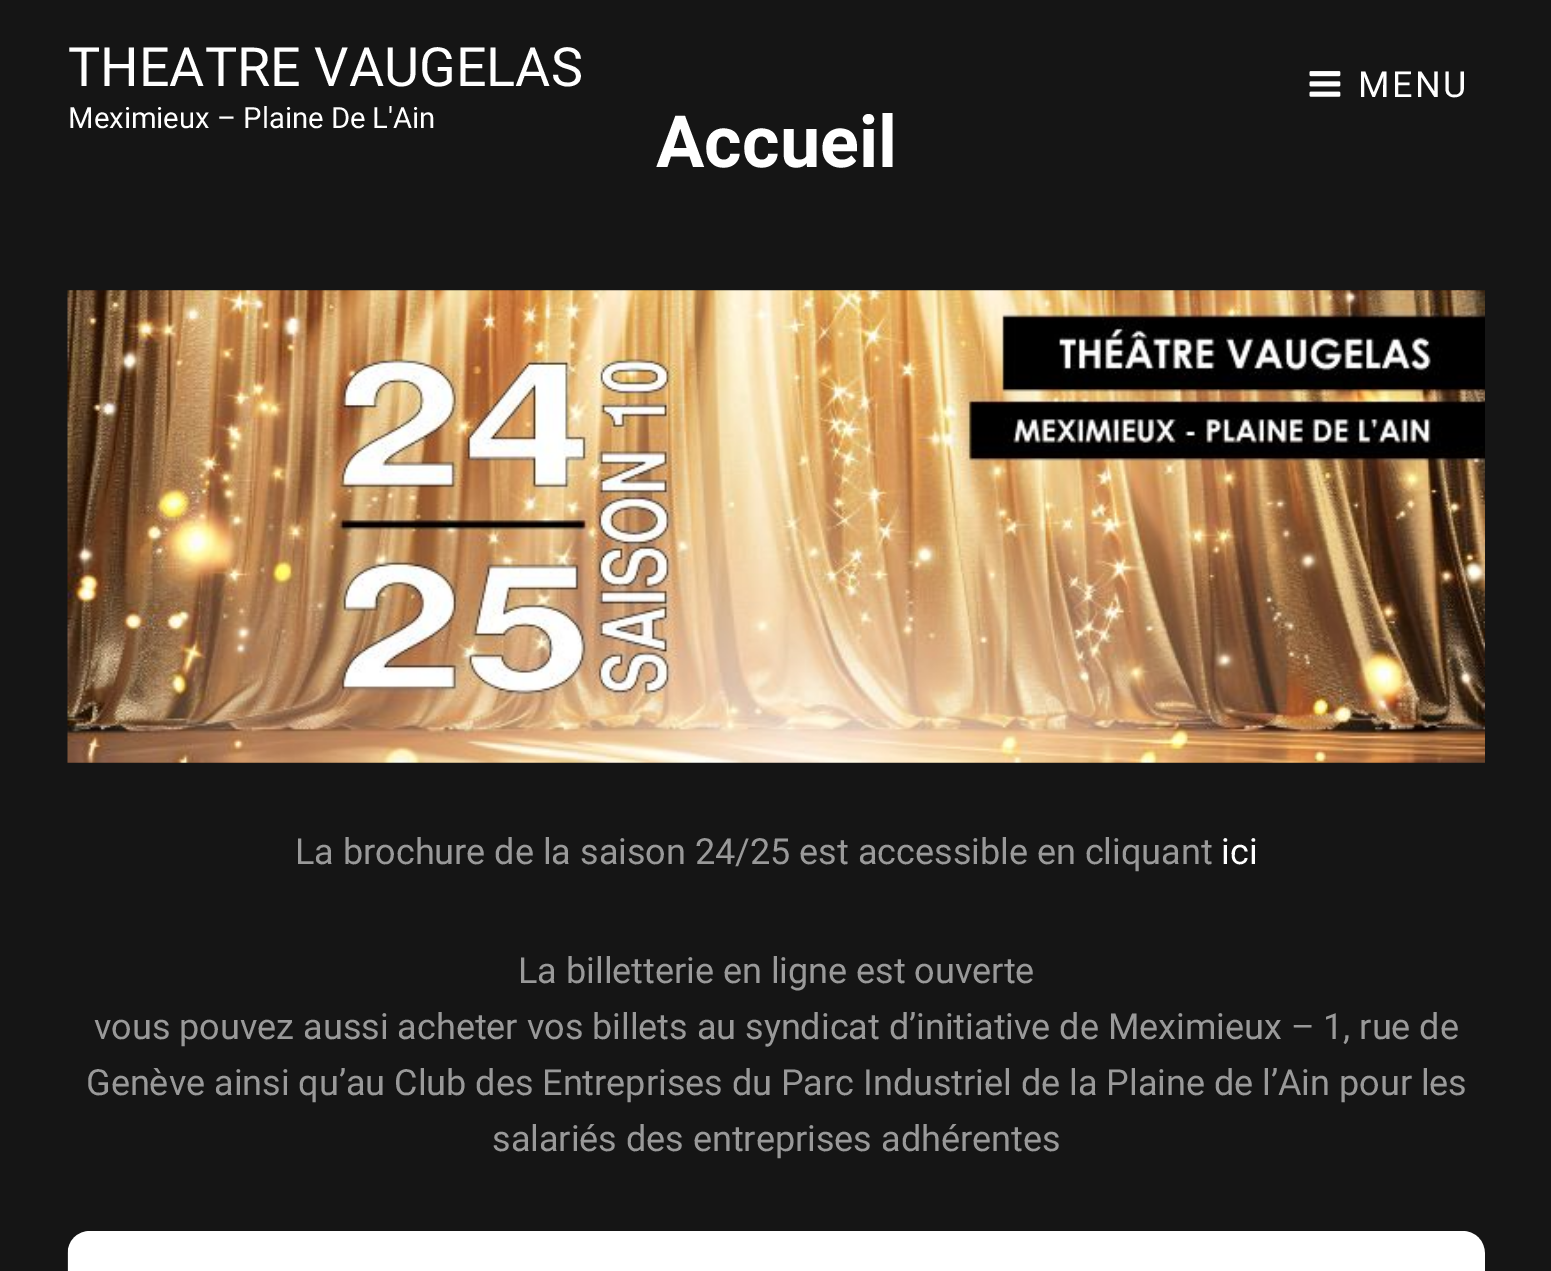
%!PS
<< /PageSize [1551 1271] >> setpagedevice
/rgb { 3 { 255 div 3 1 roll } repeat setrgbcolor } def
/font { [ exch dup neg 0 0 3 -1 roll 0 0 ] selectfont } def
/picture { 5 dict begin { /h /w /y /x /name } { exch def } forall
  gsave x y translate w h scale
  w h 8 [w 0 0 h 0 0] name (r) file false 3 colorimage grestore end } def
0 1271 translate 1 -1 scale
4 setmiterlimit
21 21 21 rgb
0 0 1551 1271 rectfill
(img/1.rgb) 1309 71 32 26 picture
(img/2.rgb) 67 290 1418 473 picture
(img/3.rgb) 67 1231 1418 40 picture
/Roboto-Regular 54 font
255 255 255 rgb
68 86 moveto (THEATRE VAUGELAS) show
/Roboto-Regular 29.25 font
68 128 moveto (Meximieux – Plaine De L'Ain) show
/Roboto-Regular 36 font
1358 97 moveto 2.5 0 (MENU) ashow
/Roboto-Bold 72 font
656 167 moveto (Accueil) show
/Roboto-Regular 36 font
153 153 153 rgb
295 864 moveto (La brochure de la saison 24/25 est accessible en cliquant) show
255 255 255 rgb
1221 864 moveto (ici) show
153 153 153 rgb
[
  [(La billetterie en ligne est ouverte) 518 983]
  [(vous pouvez aussi acheter vos billets au syndicat d’initiative de Meximieux – 1, rue de) 94 1039]
  [(Genève ainsi qu’au Club des Entreprises du Parc Industriel de la Plaine de l’Ain pour les) 86 1095]
  [(salariés des entreprises adhérentes) 492 1151]
] { aload pop moveto show } forall
showpage
